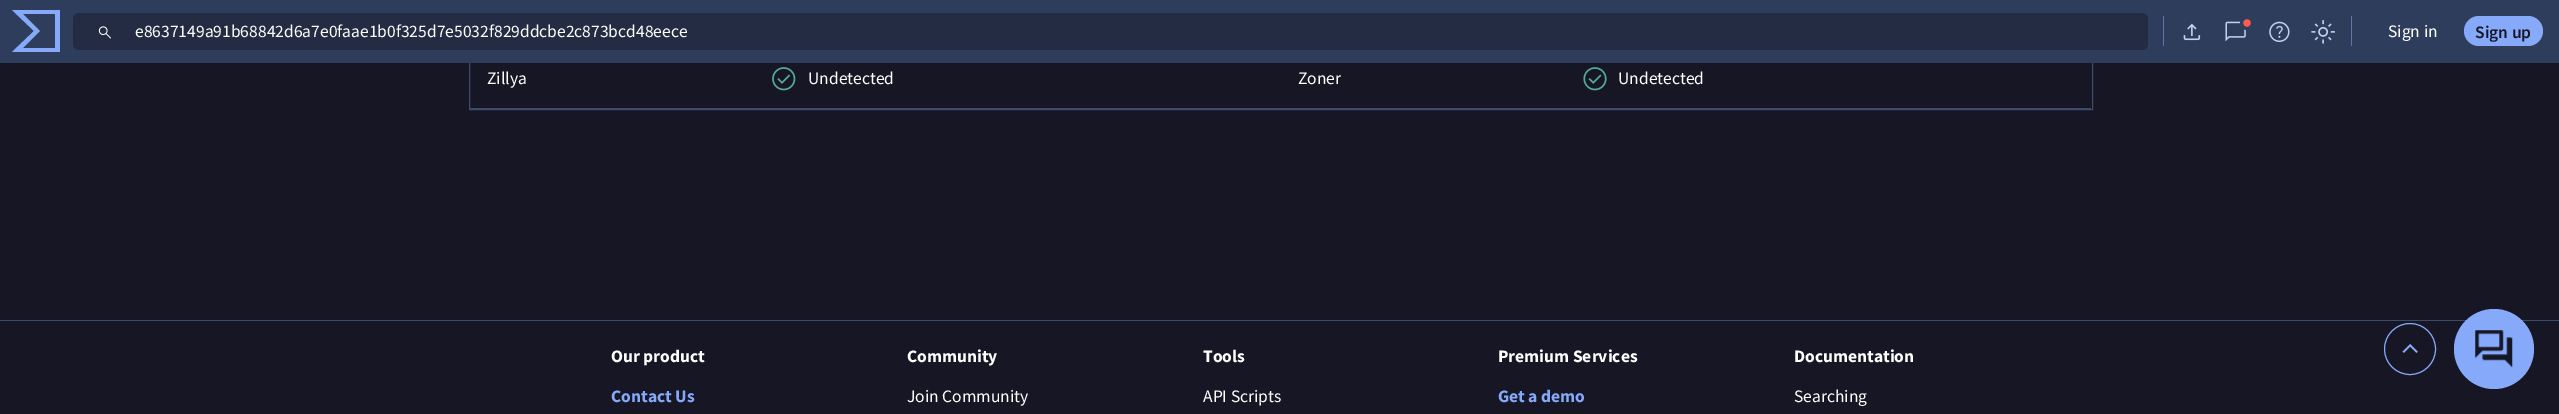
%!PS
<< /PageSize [2559 414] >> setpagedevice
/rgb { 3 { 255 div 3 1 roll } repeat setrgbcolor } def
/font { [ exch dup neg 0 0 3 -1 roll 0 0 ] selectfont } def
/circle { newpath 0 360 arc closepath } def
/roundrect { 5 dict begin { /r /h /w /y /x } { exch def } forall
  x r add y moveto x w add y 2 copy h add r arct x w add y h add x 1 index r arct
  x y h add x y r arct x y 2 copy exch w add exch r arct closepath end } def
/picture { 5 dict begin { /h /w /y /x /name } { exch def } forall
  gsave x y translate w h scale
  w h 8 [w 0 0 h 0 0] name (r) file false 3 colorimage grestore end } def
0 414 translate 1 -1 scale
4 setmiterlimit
22 22 37 rgb
0 0 2559 414 rectfill
61 74 105 rgb
469.5 -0.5 1623 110 rectstroke
47 61 92 rgb
0 0 2559 63 rectfill
134 170 249 rgb
34 31 moveto 12 52 lineto 60 52 lineto 60 10 lineto 12 10 lineto closepath 55 48 moveto 23 48 lineto 40 31 lineto 23 14 lineto 55 14 lineto closepath eofill
35 44 66 rgb
73 13 2075 37 6 roundrect fill
(img/1.rgb) 98 26 13 13 picture
98 117 163 rgb
2163 16 1 30 rectfill
(img/2.rgb) 2183 23 18 18 picture
(img/3.rgb) 2225 21 21 21 picture
255 90 80 rgb
2247 23 5.5 circle gsave fill grestore
47 61 92 rgb
3 setlinewidth
stroke
(img/4.rgb) 2269 21 21 21 picture
(img/5.rgb) 2311 20 24 24 picture
98 117 163 rgb
2351 16 1 30 rectfill
134 170 249 rgb
2464 16 79 30 15 roundrect fill
61 74 105 rgb
470 108 1621 1 rectfill
(img/6.rgb) 772 67 24 24 picture
(img/7.rgb) 1583 67 24 24 picture
0 320 2559 1 rectfill
134 170 249 rgb
1 setlinewidth
2410 349 25.5 circle stroke
(img/8.rgb) 2402 344 16 9 picture
2494 349 40 circle fill
(img/9.rgb) 2475 330 38 38 picture
/SourceSansPro-Regular 17.5 font
255 255 255 rgb
135 37 moveto (e8637149a91b68842d6a7e0faae1b0f325d7e5032f829ddcbe2c873bcd48eece) show
2388 37 moveto (Sign in) show
/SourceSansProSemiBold-SemiBold 17.5 font
22 22 37 rgb
2475 38 moveto (Sign up) show
/SourceSansPro-Regular 17.5 font
255 255 255 rgb
[
  [(Zillya) 487 84]
  [(Undetected) 808 84]
  [(Zoner) 1298 84]
  [(Undetected) 1618 84]
] { aload pop moveto show } forall
/SourceSansPro-Bold 17.5 font
611 362 moveto (Our product) show
134 170 249 rgb
611 402 moveto (Contact Us) show
255 255 255 rgb
907 362 moveto (Community) show
/SourceSansPro-Regular 17.5 font
907 402 moveto (Join Community) show
/SourceSansPro-Bold 17.5 font
1203 362 moveto (Tools) show
/SourceSansPro-Regular 17.5 font
1203 402 moveto (API Scripts) show
/SourceSansPro-Bold 17.5 font
1498 362 moveto (Premium Services) show
134 170 249 rgb
1498 402 moveto (Get a demo) show
255 255 255 rgb
1794 362 moveto (Documentation) show
/SourceSansPro-Regular 17.5 font
1794 402 moveto (Searching) show
showpage
